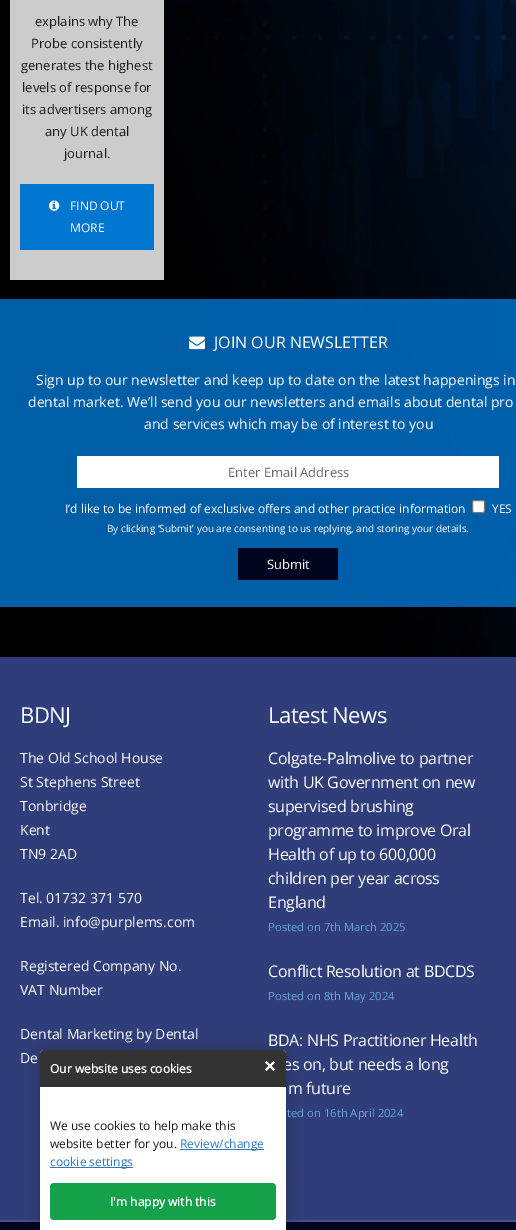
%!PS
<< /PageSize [516 1230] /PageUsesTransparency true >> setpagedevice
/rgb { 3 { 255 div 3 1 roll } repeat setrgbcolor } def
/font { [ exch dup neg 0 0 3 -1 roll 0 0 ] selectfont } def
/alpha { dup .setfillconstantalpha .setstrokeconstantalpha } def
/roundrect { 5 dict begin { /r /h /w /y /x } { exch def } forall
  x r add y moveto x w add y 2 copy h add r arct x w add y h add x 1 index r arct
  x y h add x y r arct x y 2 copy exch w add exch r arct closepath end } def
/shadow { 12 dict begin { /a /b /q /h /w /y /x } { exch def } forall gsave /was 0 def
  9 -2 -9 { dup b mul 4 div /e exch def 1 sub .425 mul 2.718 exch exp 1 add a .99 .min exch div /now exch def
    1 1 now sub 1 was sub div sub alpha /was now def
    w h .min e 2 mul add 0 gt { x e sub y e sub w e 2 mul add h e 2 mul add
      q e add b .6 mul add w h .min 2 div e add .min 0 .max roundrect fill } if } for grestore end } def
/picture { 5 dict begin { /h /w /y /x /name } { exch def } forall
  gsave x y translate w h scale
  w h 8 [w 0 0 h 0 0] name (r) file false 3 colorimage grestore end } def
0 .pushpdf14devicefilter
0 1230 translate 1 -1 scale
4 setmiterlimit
255 255 255 rgb
0 0 516 1230 rectfill
(img/1.rgb) 0 0 516 657 picture
0.8 alpha
10 0 154 280 rectfill
1 alpha
0 118 209 rgb
20 184 134 66 rectfill
(img/2.rgb) 49 200 11 11 picture
0.8 alpha
0 299 516 308 rectfill
1 alpha
(img/3.rgb) 189 336 16 14 picture
255 255 255 rgb
77 456 422 32 rectfill
472.5 500.5 12 12 1.5 roundrect gsave fill grestore
118 118 118 rgb
stroke
[
  [238 548 100 32 2 5 32]
  [0 657 516 563 47 62 122]
  [0 1220 516 2 68 81 133]
  [0 1222 516 8 3 5 32]
] { aload pop rgb rectfill } forall
0 0 0 rgb
40 1050 246 180 4 10 0.2 shadow
255 255 255 rgb
44 1050 moveto 282 1050 lineto 284 1050 286 1052 286 1054 curveto 286 1230 lineto 40 1230 lineto 40 1054 lineto 40 1052 42 1050 44 1050 curveto closepath fill
44 120 188 rgb
180 1149 84 1 rectfill
50 1167 83 1 rectfill
21 160 74 rgb
50 1183 226 37 4 roundrect fill
/OpenSans-Regular 13 font
22 24 25 rgb
[
  [(explains why The) 35 26]
  [(Probe consistently) 31 48]
  [(generates the highest) 21 70]
  [(levels of response for) 22 92]
  [(its advertisers among) 22 114]
  [(any UK dental) 45 136]
  [(journal.) 64 158]
] { aload pop moveto show } forall
/OpenSans-Regular 12 font
255 255 255 rgb
70 210 moveto (FIND OUT) show
70 232 moveto (MORE) show
/OpenSans-Regular 16 font
214 348 moveto (JOIN OUR NEWSLETTER) show
/OpenSans-Regular 14 font
[
  [(Sign up to our newsletter and keep up to date on the latest happenings in) 36 385]
  [(dental market. We’ll send you our newsletters and emails about dental pro) 28 407]
  [(and services which may be of interest to you) 144 429]
] { aload pop moveto show } forall
/OpenSans-Regular 13 font
102 102 102 rgb
228 477 moveto (Enter Email Address) show
/OpenSans-Regular 12 font
255 255 255 rgb
65 513 moveto (I’d like to be informed of exclusive offers and other practice information) show
492 513 moveto (YES) show
/OpenSans-Regular 10 font
107 532 moveto (By clicking ‘Submit’ you are consenting to us replying, and storing your details.) show
/OpenSans-Regular 13 font
267 569 moveto (Submit) show
/OpenSans-Regular 22 font
20 723 moveto -0.5 0 (BDNJ) ashow
/OpenSans-Regular 14 font
[
  [(The Old School House) 20 763]
  [(St Stephens Street) 20 787]
  [(Tonbridge) 20 811]
  [(Kent) 20 835]
  [(TN9 2AD) 20 859]
  [(Tel. 01732 371 570) 20 903]
  [(Email. info@purplems.com) 20 927]
  [(Registered Company No.) 20 971]
  [(VAT Number) 20 995]
  [(Dental Marketing by Dental) 20 1039]
  [(De) 20 1063]
] { aload pop moveto show } forall
/OpenSans-Regular 22 font
268 723 moveto -0.5 0 (Latest News) ashow
/OpenSans-Regular 16 font
268 764 moveto -0.3 0 (Colgate-Palmolive to partner) ashow
268 788 moveto -0.3 0 (with UK Government on new) ashow
268 812 moveto -0.3 0 (supervised brushing) ashow
268 836 moveto -0.3 0 (programme to improve Oral) ashow
268 860 moveto -0.3 0 (Health of up to 600,000) ashow
268 884 moveto -0.3 0 (children per year across) ashow
268 908 moveto -0.3 0 (England) ashow
/OpenSans-Regular 11.25 font
106 166 212 rgb
268 931 moveto (Posted on 7th March 2025) show
/OpenSans-Regular 16 font
255 255 255 rgb
268 977 moveto -0.3 0 (Conflict Resolution at BDCDS) ashow
/OpenSans-Regular 11.25 font
106 166 212 rgb
268 1000 moveto (Posted on 8th May 2024) show
/OpenSans-Regular 16 font
255 255 255 rgb
268 1046 moveto -0.3 0 (BDA: NHS Practitioner Health) ashow
283 1070 moveto -0.3 0 (es on, but needs a long) ashow
288 1094 moveto -0.3 0 (m future) ashow
/OpenSans-Regular 11.25 font
106 166 212 rgb
287 1117 moveto (ted on 16th April 2024) show
51 51 51 rgb
44 1050 moveto 282 1050 lineto 284 1050 286 1052 286 1054 curveto 286 1087 lineto 40 1087 lineto 40 1054 lineto 40 1052 42 1050 44 1050 curveto closepath fill
/OpenSans-Bold 12 font
255 255 255 rgb
50 1073 moveto (Our website uses cookies) show
273.5 1061 moveto 275 1062.5 lineto 266.5 1071 lineto 265 1069.5 lineto closepath fill
265 1062.5 moveto 266.5 1061 lineto 275 1069.5 lineto 273.5 1071 lineto closepath fill
/OpenSans-Regular 12 font
22 24 25 rgb
50 1130 moveto (We use cookies to help make this) show
50 1148 moveto (website better for you.) show
44 120 188 rgb
180 1148 moveto (Review/change) show
50 1166 moveto (cookie settings) show
/OpenSans-Bold 12 font
255 255 255 rgb
110 1206 moveto (I'm happy with this) show
.poppdf14devicefilter showpage
